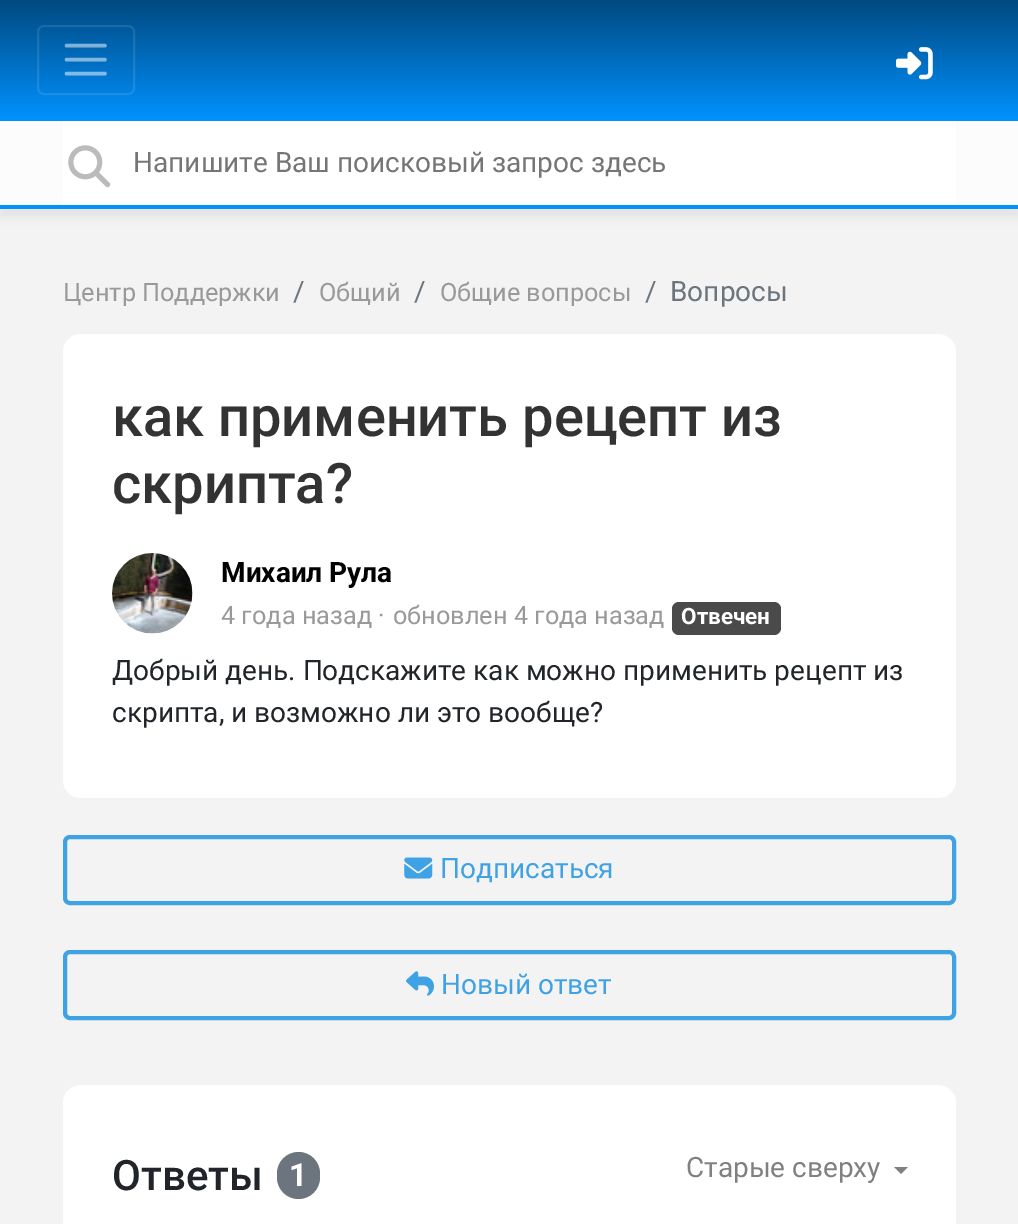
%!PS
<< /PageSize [1018 1224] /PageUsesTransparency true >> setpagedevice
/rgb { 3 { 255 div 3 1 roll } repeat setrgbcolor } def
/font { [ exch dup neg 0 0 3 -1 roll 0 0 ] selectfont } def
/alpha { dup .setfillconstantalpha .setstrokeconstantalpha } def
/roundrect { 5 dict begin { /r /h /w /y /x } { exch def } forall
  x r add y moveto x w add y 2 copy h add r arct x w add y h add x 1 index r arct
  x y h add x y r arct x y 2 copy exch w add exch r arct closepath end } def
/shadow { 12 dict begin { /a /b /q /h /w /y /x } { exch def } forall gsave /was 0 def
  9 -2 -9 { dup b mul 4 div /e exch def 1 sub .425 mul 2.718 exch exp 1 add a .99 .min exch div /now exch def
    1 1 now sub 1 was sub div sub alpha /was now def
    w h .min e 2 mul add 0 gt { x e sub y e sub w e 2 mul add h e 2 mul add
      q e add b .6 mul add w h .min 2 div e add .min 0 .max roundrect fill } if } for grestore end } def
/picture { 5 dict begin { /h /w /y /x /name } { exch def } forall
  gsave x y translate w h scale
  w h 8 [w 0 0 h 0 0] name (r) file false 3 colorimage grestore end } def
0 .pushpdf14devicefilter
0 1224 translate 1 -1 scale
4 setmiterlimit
243 243 243 rgb
0 0 1018 1224 rectfill
gsave 0 0 moveto 1018 0 lineto 1018 121 lineto 0 121 lineto closepath clip newpath
<< /ShadingType 2 /ColorSpace /DeviceRGB /Coords [509 0 509 121] /Extend [true true] /Function << /FunctionType 2 /Domain [0 1] /C0 [0 0.286 0.502] /C1 [0 0.573 1] /N 1 >> >> shfill grestore
0.1 alpha
255 255 255 rgb
2 setlinewidth
38 26 96 68 6 roundrect stroke
0.5 alpha
3.5 setlinewidth
1 setlinecap
66.5 45.5 moveto 105 45.5 lineto 66.5 59.5 moveto 105 59.5 lineto 66.5 73.5 moveto 105 73.5 lineto stroke
1 alpha
(img/1.rgb) 896 47 37 33 picture
100 100 100 rgb
0 130 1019 87 0 4.5 0.1 shadow
[
  [0 121 1018 84 252 252 252]
  [0 205 1018 4 0 146 255]
  [63 121 893 84 255 255 255]
] { aload pop rgb rectfill } forall
(img/2.rgb) 68 145 43 43 picture
63 334 893 464 18 roundrect fill
(img/3.rgb) 112 553 81 81 picture
74 74 74 rgb
672 602 109 33 7 roundrect fill
63 162 228 rgb
4 setlinewidth
0 setlinecap
65 837 889 66 5 roundrect stroke
(img/4.rgb) 404 857 29 22 picture
65 952 889 66 5 roundrect stroke
(img/5.rgb) 406 971 28 25 picture
255 255 255 rgb
63 1085 893 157 18 roundrect fill
108 117 125 rgb
277 1152 43 47 21.5 roundrect fill
128 128 128 rgb
894 1167 moveto 908 1167 lineto 901 1174 lineto closepath fill
/Roboto-Regular 28 font
117 117 117 rgb
133 172 moveto (Напишите Ваш поисковый запрос здесь) show
/Roboto-Regular 25.25 font
153 153 153 rgb
63 301 moveto (Центр Поддержки) show
/Roboto-Regular 28 font
108 117 125 rgb
293 301 moveto (/) show
/Roboto-Regular 25.25 font
153 153 153 rgb
319 301 moveto (Общий) show
/Roboto-Regular 28 font
108 117 125 rgb
414 301 moveto (/) show
/Roboto-Regular 25.25 font
153 153 153 rgb
440 301 moveto (Общие вопросы) show
/Roboto-Regular 28 font
108 117 125 rgb
645 301 moveto (/) show
670 301 moveto (Вопросы) show
/Roboto-Medium 56 font
51 51 51 rgb
112 436 moveto (как применить рецепт из) show
112 503 moveto (скрипта?) show
/Roboto-Bold 28 font
0 0 0 rgb
221 582 moveto (Михаил Рула) show
/Roboto-Regular 25.25 font
153 153 153 rgb
[
  [(4 года назад) 221 624]
  [(·) 378 624]
  [(обновлен 4 года назад) 393 624]
] { aload pop moveto show } forall
/Roboto-Bold 22.5 font
255 255 255 rgb
681 624 moveto (Отвечен) show
/Roboto-Regular 28 font
33 37 41 rgb
112 680 moveto (Добрый день. Подскажите как можно применить рецепт из) show
112 722 moveto (скрипта, и возможно ли это вообще?) show
63 162 228 rgb
440 878 moveto (Подписаться) show
441 994 moveto (Новый ответ) show
/Roboto-Medium 42 font
33 37 41 rgb
112 1190 moveto (Ответы) show
/Roboto-Bold 32 font
255 255 255 rgb
289 1186 moveto (1) show
/Roboto-Regular 28 font
128 128 128 rgb
686 1177 moveto (Старые сверху) show
.poppdf14devicefilter showpage
